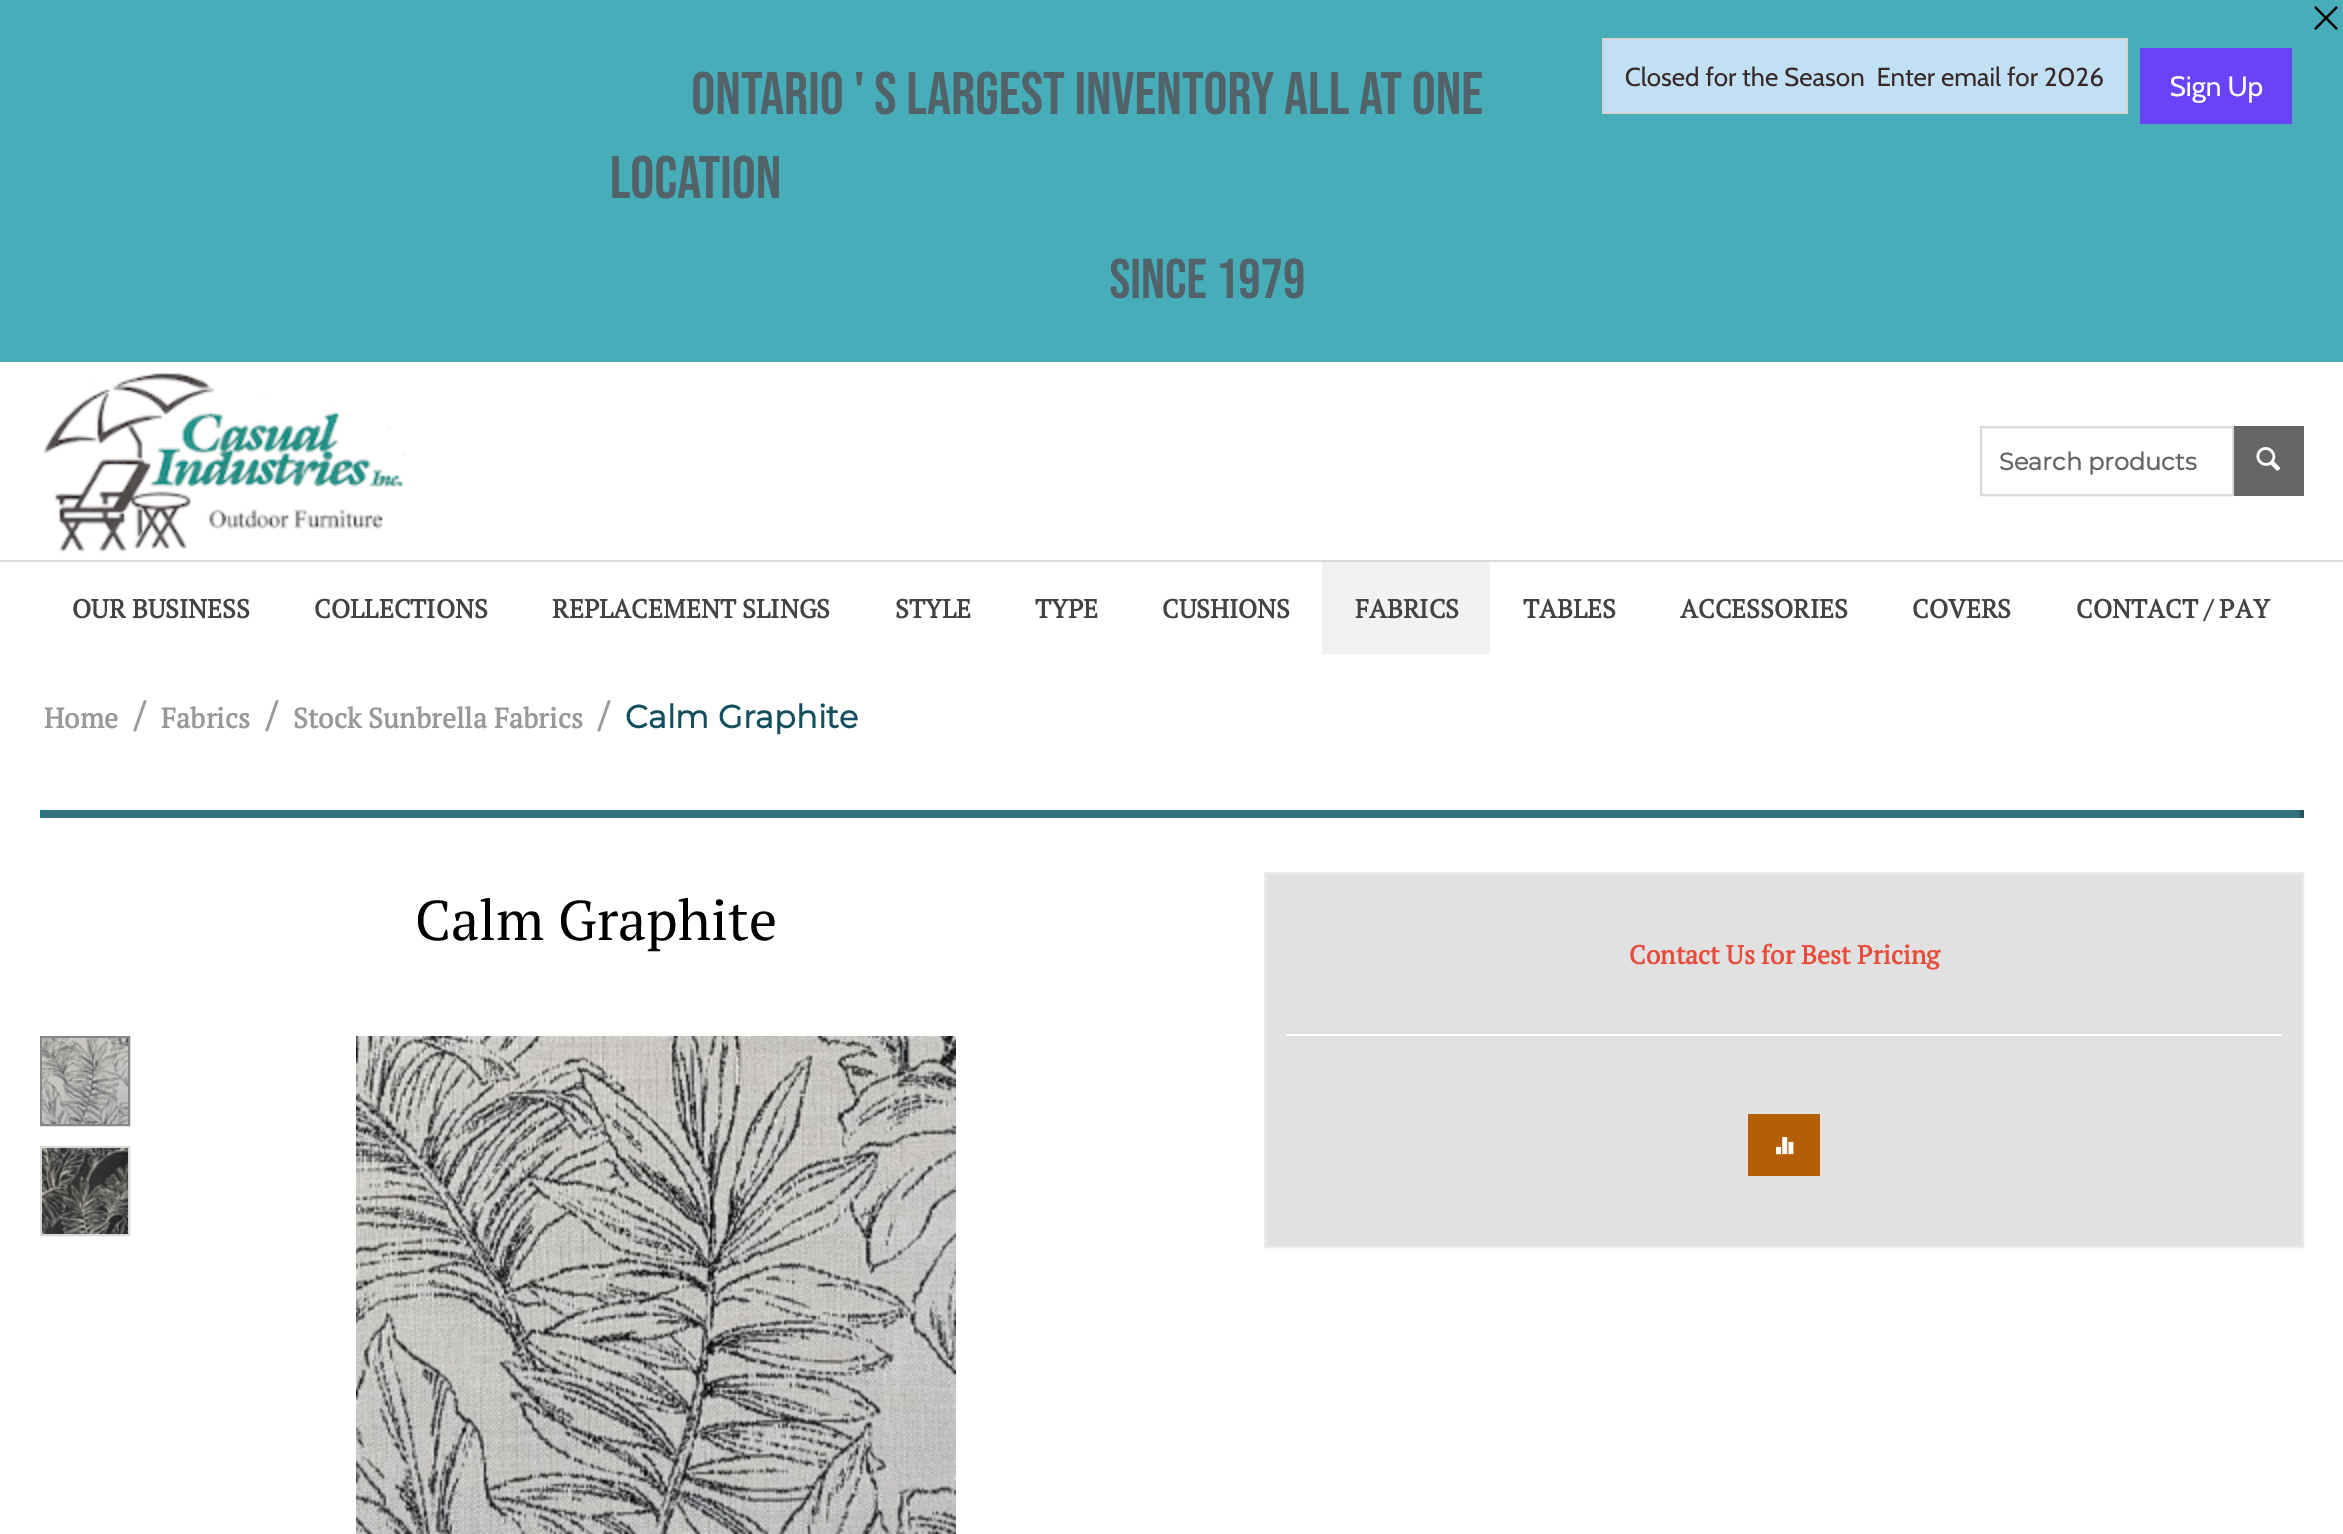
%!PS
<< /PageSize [2343 1534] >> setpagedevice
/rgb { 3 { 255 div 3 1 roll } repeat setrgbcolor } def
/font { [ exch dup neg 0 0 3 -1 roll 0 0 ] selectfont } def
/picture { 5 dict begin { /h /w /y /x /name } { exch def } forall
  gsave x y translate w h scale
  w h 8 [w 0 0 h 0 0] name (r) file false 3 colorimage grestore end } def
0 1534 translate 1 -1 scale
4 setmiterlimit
255 255 255 rgb
0 0 2343 1534 rectfill
(img/1.rgb) 0 0 2343 362 picture
217 217 217 rgb
0 560 2343 2 rectfill
(img/2.rgb) 43 371 362 182 picture
2 setlinewidth
1981 427 252 68 rectstroke
102 102 102 rgb
2234 426 70 70 rectfill
(img/3.rgb) 2256 447 25 24 picture
242 242 242 rgb
1322 562 168 92 rectfill
(img/4.rgb) 40 810 2264 8 picture
136 136 136 rgb
41 1037 88 88 rectstroke
(img/5.rgb) 42 1038 86 86 picture
217 217 217 rgb
41 1147 88 88 rectstroke
(img/6.rgb) 42 1148 86 86 picture
(img/7.rgb) 356 1036 600 498 picture
225 225 225 rgb
1265 873 moveto 2303 873 lineto 2303 1247 lineto 1265 1247 lineto closepath gsave fill grestore
235 235 235 rgb
stroke
[
  [1286 1034 996 2 255 255 255]
  [1286 1032 996 2 221 223 223]
  [1748 1114 72 62 180 95 6]
] { aload pop rgb rectfill } forall
(img/8.rgb) 1776 1137 18 18 picture
/Montserrat-Bold 24 font
102 102 102 rgb
1999 470 moveto (Search products) show
/PTSerif-Bold 26 font
67 67 67 rgb
[
  [(OUR BUSINESS) 72 618]
  [(COLLECTIONS) 314 618]
  [(REPLACEMENT SLINGS) 552 618]
  [(STYLE) 895 618]
  [(TYPE) 1035 618]
  [(CUSHIONS) 1162 618]
  [(FABRICS) 1355 618]
  [(TABLES) 1523 618]
  [(ACCESSORIES) 1680 618]
  [(COVERS) 1912 618]
  [(CONTACT / PAY) 2076 618]
] { aload pop moveto show } forall
/PTSerif-Bold 28 font
153 153 153 rgb
44 728 moveto (Home) show
/Montserrat-Bold 32 font
134 728 moveto (/) show
/PTSerif-Bold 28 font
161 728 moveto (Fabrics) show
/Montserrat-Bold 32 font
266 728 moveto (/) show
/PTSerif-Bold 28 font
293 728 moveto (Stock Sunbrella Fabrics) show
/Montserrat-Bold 32 font
598 728 moveto (/) show
19 79 92 rgb
625 728 moveto (Calm Graphite) show
/PTSerif-Regular 56 font
0 0 0 rgb
415 940 moveto (Calm Graphite) show
/PTSerif-Bold 26 font
231 76 60 rgb
1629 964 moveto (Contact Us for Best Pricing) show
showpage
